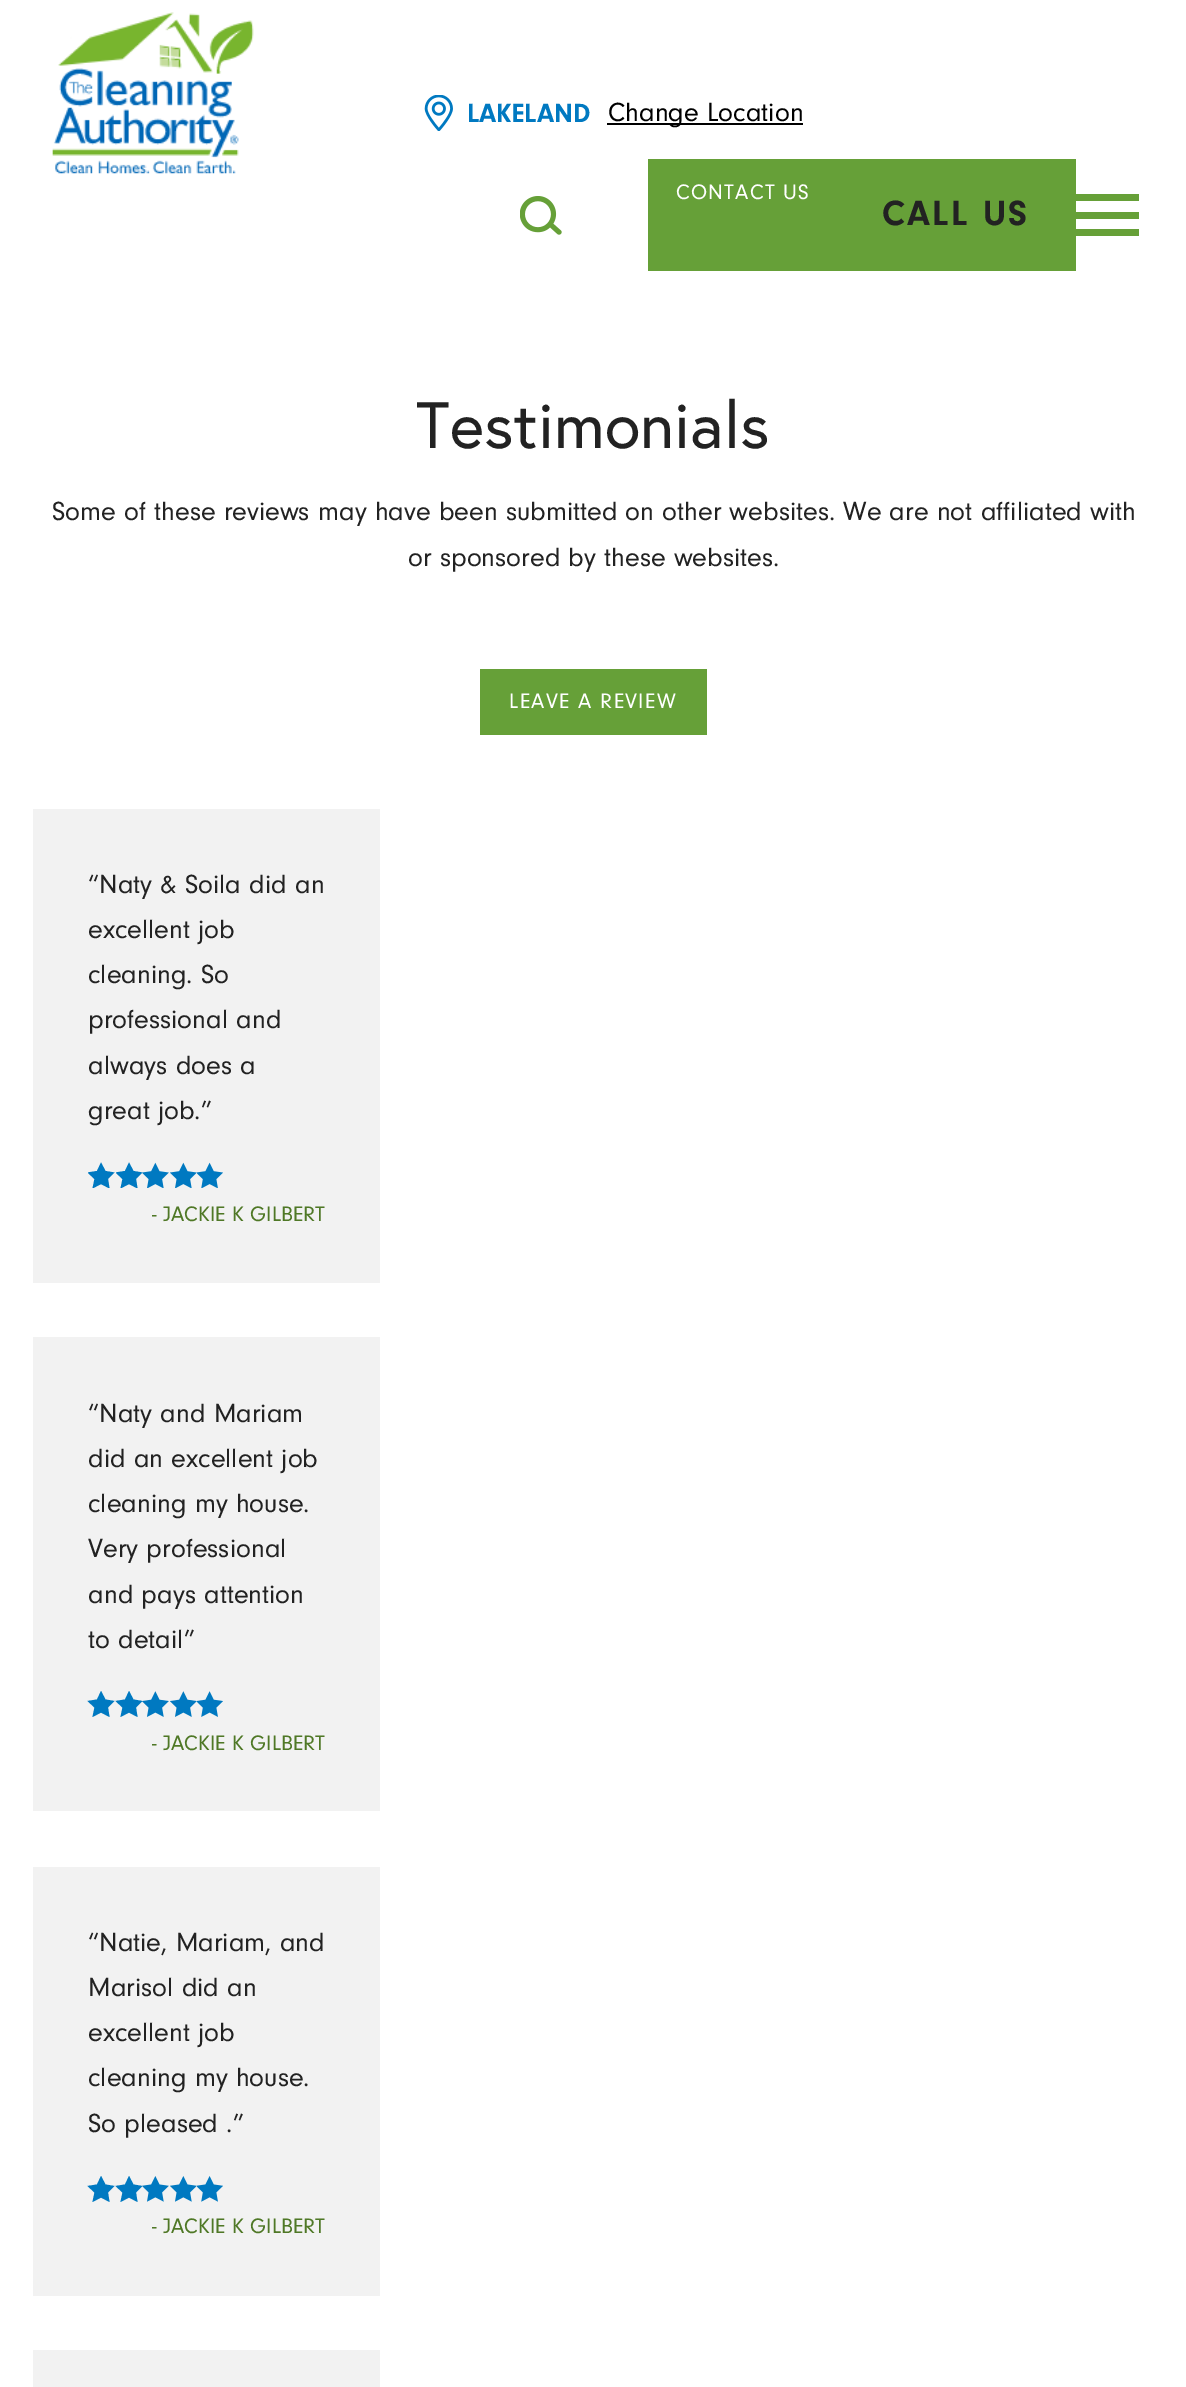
%!PS
<< /PageSize [1186 2387] >> setpagedevice
/rgb { 3 { 255 div 3 1 roll } repeat setrgbcolor } def
/font { [ exch dup neg 0 0 3 -1 roll 0 0 ] selectfont } def
/picture { 5 dict begin { /h /w /y /x /name } { exch def } forall
  gsave x y translate w h scale
  w h 8 [w 0 0 h 0 0] name (r) file false 3 colorimage grestore end } def
0 2387 translate 1 -1 scale
4 setmiterlimit
255 255 255 rgb
0 0 1186 2387 rectfill
(img/1.rgb) 52 12 202 162 picture
(img/2.rgb) 424 95 29 36 picture
0 0 0 rgb
607 123 196 2 rectfill
102 160 56 rgb
648 159 428 112 rectfill
(img/3.rgb) 520 196 42 39 picture
[
  [1076 194 63 7 102 160 56]
  [1076 212 63 7 102 160 56]
  [1076 229 63 7 102 160 56]
  [480 669 227 66 102 160 56]
  [33 809 347 474 242 242 242]
] { aload pop rgb rectfill } forall
gsave
88 1162 28 26 rectclip
0 121 193 rgb
114.5 1172.5 moveto 105.5 1171 lineto 101 1162.5 lineto 97 1171 lineto 87.5 1172.5 lineto 94.5 1179 lineto 92.5 1188.5 lineto 101 1184 lineto 109.5 1188.5 lineto 108 1179 lineto closepath fill
grestore
gsave
116 1162 26 26 rectclip
0 121 193 rgb
142.5 1172.5 moveto 133.5 1171 lineto 129 1162.5 lineto 125 1171 lineto 115.5 1172.5 lineto 122.5 1179 lineto 120.5 1188.5 lineto 129 1184 lineto 137.5 1188.5 lineto 136 1179 lineto closepath fill
grestore
(img/4.rgb) 142 1162 27 26 picture
(img/5.rgb) 170 1162 26 26 picture
(img/6.rgb) 196 1162 27 26 picture
33 1337 347 474 rectfill
0 121 193 rgb
114.5 1701 moveto 105.5 1699.5 lineto 101 1691 lineto 97 1699.5 lineto 87.5 1701 lineto 94.5 1707.5 lineto 92.5 1717 lineto 101 1712.5 lineto 109.5 1717 lineto 108 1707.5 lineto closepath 142.5 1701 moveto 133.5 1699.5 lineto 129 1691 lineto 125 1699.5 lineto 115.5 1701 lineto 122.5 1707.5 lineto 120.5 1717 lineto 129 1712.5 lineto 137.5 1717 lineto 136 1707.5 lineto closepath fill
(img/7.rgb) 142 1691 27 26 picture
(img/8.rgb) 170 1691 26 26 picture
(img/9.rgb) 196 1691 27 26 picture
242 242 242 rgb
33 1867 347 429 rectfill
0 121 193 rgb
114.5 2186 moveto 105.5 2184.5 lineto 101 2176 lineto 97 2184.5 lineto 87.5 2186 lineto 94.5 2192.5 lineto 92.5 2202 lineto 101 2197.5 lineto 109.5 2202 lineto 108 2192.5 lineto closepath 142.5 2186 moveto 133.5 2184.5 lineto 129 2176 lineto 125 2184.5 lineto 115.5 2186 lineto 122.5 2192.5 lineto 120.5 2202 lineto 129 2197.5 lineto 137.5 2202 lineto 136 2192.5 lineto closepath fill
(img/10.rgb) 142 2176 27 26 picture
(img/11.rgb) 170 2176 26 26 picture
(img/12.rgb) 196 2176 27 26 picture
242 242 242 rgb
33 2350 347 37 rectfill
/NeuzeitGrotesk-Bold 27.2 font
0 121 193 rgb
467 122 moveto (LAKELAND) show
/NeuzeitGrotesk-Regular 27.2 font
0 0 0 rgb
608 121 moveto (Change Location) show
/NeuzeitGrotesk-Regular 21.75 font
255 255 255 rgb
676 199 moveto 1.25 0 (CONTACT US) ashow
/NeuzeitGrotesk-Bold 36.25 font
34 34 34 rgb
882 225 moveto 2.25 0 (CALL US) ashow
/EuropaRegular-Regular 65.25 font
416 448 moveto 0.1 0 (Testimonials) ashow
/NeuzeitGrotesk-Regular 27.2 font
52 520 moveto (Some of these reviews may have been submitted on other websites. We are not affiliated with) show
408 566 moveto (or sponsored by these websites.) show
/NeuzeitGrotesk-Regular 21.75 font
255 255 255 rgb
509 708 moveto 1.25 0 (LEAVE A REVIEW) ashow
/NeuzeitGrotesk-Regular 27.2 font
34 34 34 rgb
[
  [(“Naty & Soila did an) 88 893]
  [(excellent job) 88 938]
  [(cleaning. So) 88 983]
  [(professional and) 88 1028]
  [(always does a) 88 1074]
  [(great job.”) 88 1119]
] { aload pop moveto show } forall
/NeuzeitGrotesk-Regular 21.75 font
79 120 38 rgb
152 1221 moveto (- JACKIE K GILBERT) show
/NeuzeitGrotesk-Regular 27.2 font
34 34 34 rgb
[
  [(“Naty and Mariam) 88 1422]
  [(did an excellent job) 88 1467]
  [(cleaning my house.) 88 1512]
  [(Very professional) 88 1557]
  [(and pays attention) 88 1603]
  [(to detail”) 88 1648]
] { aload pop moveto show } forall
/NeuzeitGrotesk-Regular 21.75 font
79 120 38 rgb
152 1750 moveto (- JACKIE K GILBERT) show
/NeuzeitGrotesk-Regular 27.2 font
34 34 34 rgb
[
  [(“Natie, Mariam, and) 88 1951]
  [(Marisol did an) 88 1996]
  [(excellent job) 88 2041]
  [(cleaning my house.) 88 2086]
  [(So pleased .”) 88 2132]
] { aload pop moveto show } forall
/NeuzeitGrotesk-Regular 21.75 font
79 120 38 rgb
152 2233 moveto (- JACKIE K GILBERT) show
showpage
